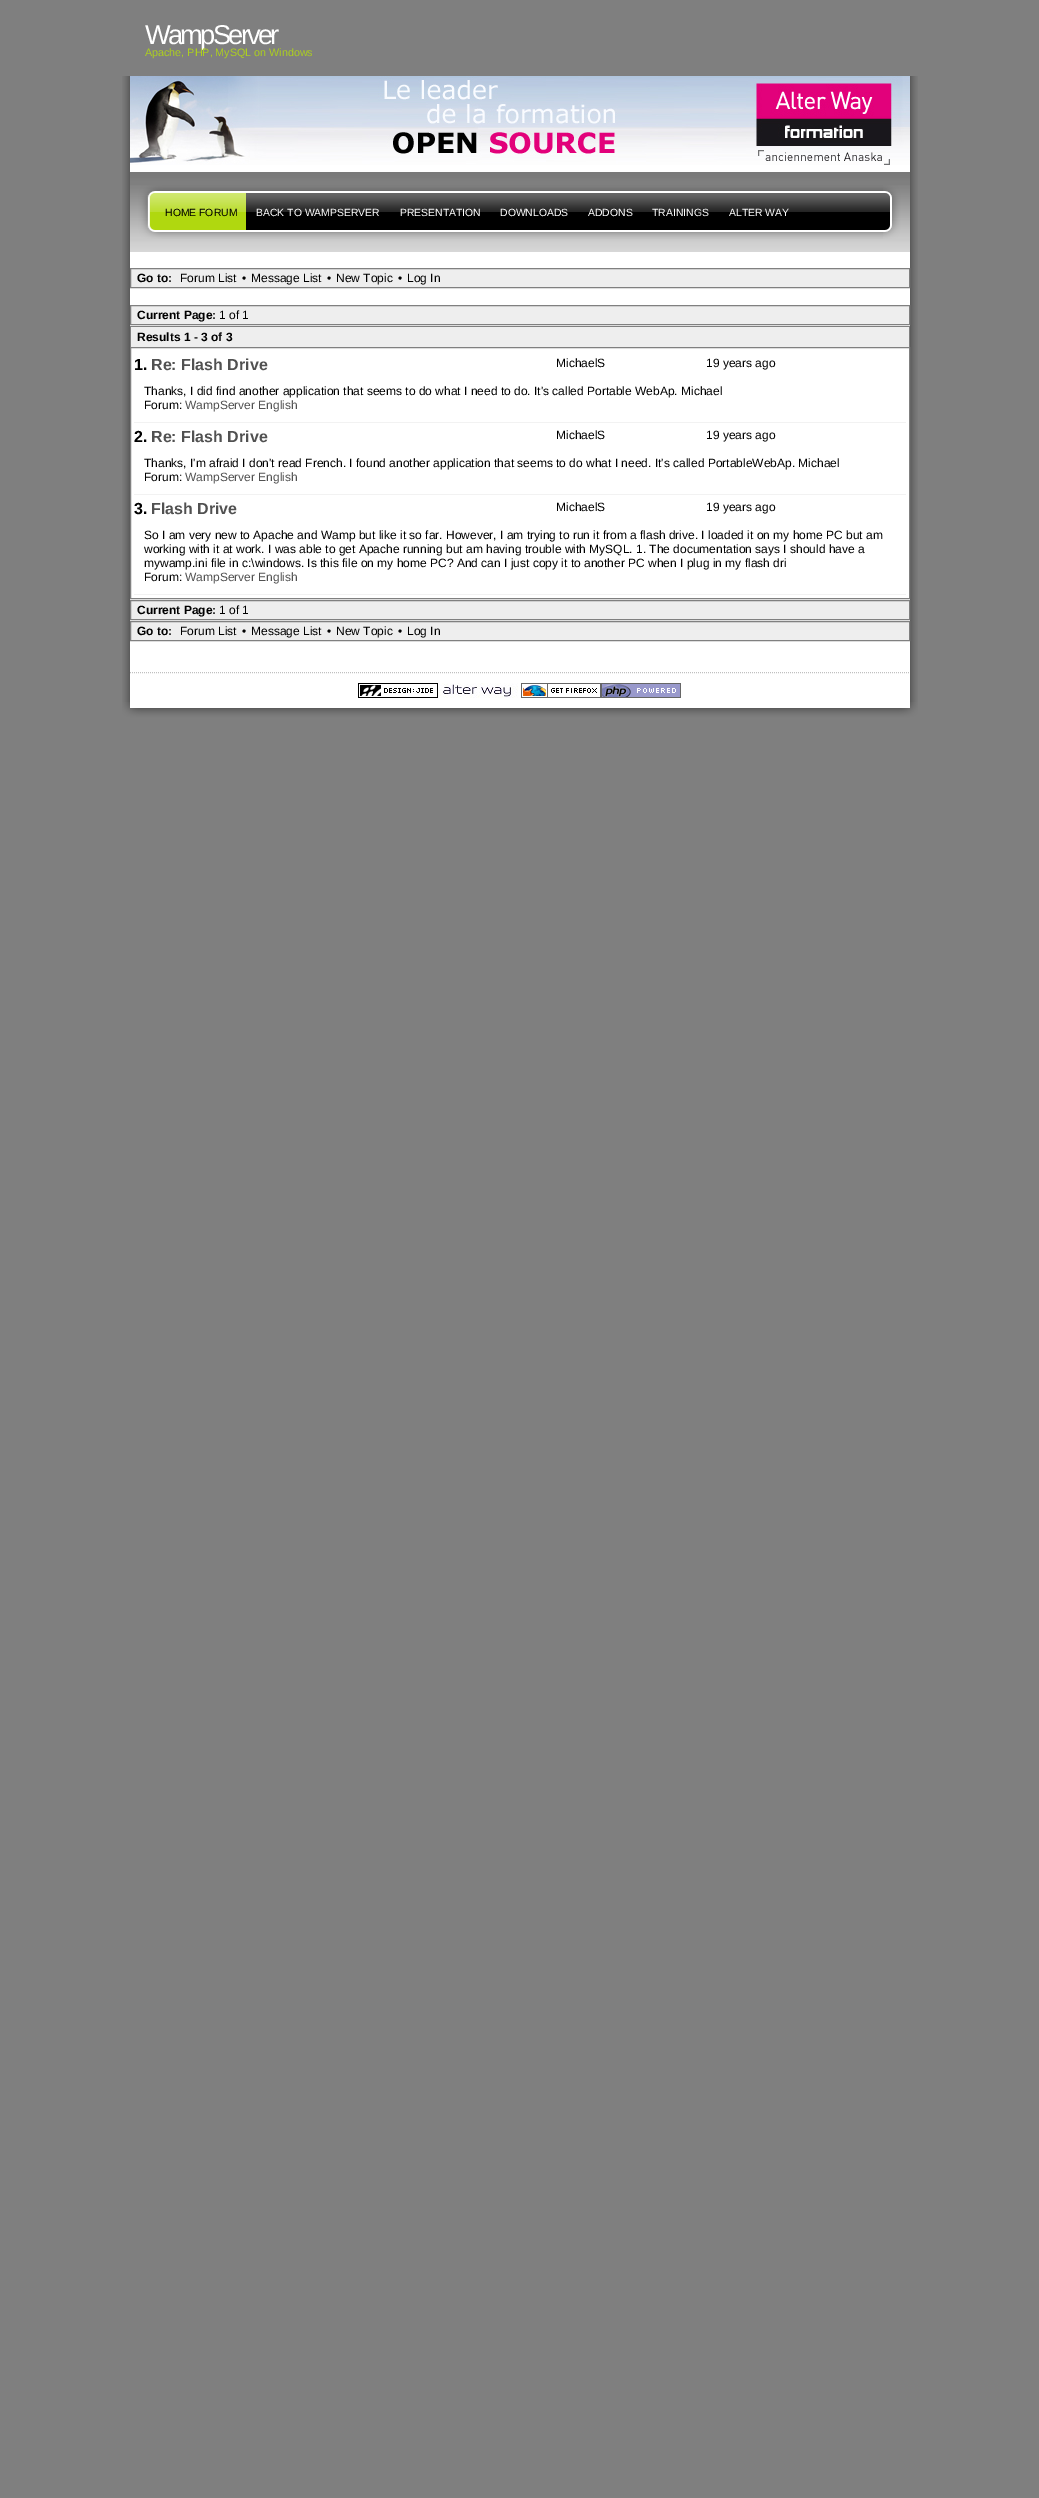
%!PS
<< /PageSize [1039 2498] >> setpagedevice
/rgb { 3 { 255 div 3 1 roll } repeat setrgbcolor } def
/font { [ exch dup neg 0 0 3 -1 roll 0 0 ] selectfont } def
/picture { 5 dict begin { /h /w /y /x /name } { exch def } forall
  gsave x y translate w h scale
  w h 8 [w 0 0 h 0 0] name (r) file false 3 colorimage grestore end } def
0 2498 translate 1 -1 scale
4 setmiterlimit
127 127 127 rgb
0 0 1039 2498 rectfill
(img/1.rgb) 122 76 796 626 picture
(img/2.rgb) 130 76 780 89 picture
(img/3.rgb) 130 172 780 80 picture
(img/4.rgb) 130 185 116 54 picture
(img/5.rgb) 883 185 27 54 picture
238 238 238 rgb
130.5 268.5 moveto 909.5 268.5 lineto 909.5 287.5 lineto 130.5 287.5 lineto closepath gsave fill grestore
128 128 128 rgb
stroke
238 238 238 rgb
130.5 305.5 moveto 909.5 305.5 lineto 909.5 324.5 lineto 130.5 324.5 lineto closepath gsave fill grestore
128 128 128 rgb
stroke
[
  [131 327 778 20 238 238 238]
  [130 326 780 1 128 128 128]
  [909 326 1 21 128 128 128]
  [130 326 1 21 128 128 128]
] { aload pop rgb rectfill } forall
130.5 347.5 779 251 rectstroke
[
  [134 422 772 1 242 242 242]
  [134 494 772 1 242 242 242]
  [134 594 772 1 242 242 242]
] { aload pop rgb rectfill } forall
238 238 238 rgb
130.5 600.5 moveto 909.5 600.5 lineto 909.5 619.5 lineto 130.5 619.5 lineto closepath gsave fill grestore
128 128 128 rgb
stroke
238 238 238 rgb
130.5 621.5 moveto 909.5 621.5 lineto 909.5 640.5 lineto 130.5 640.5 lineto closepath gsave fill grestore
128 128 128 rgb
stroke
(img/6.rgb) 122 702 796 16 picture
192 192 192 rgb
[1 1] 0 setdash
130 672.5 moveto 910 672.5 lineto stroke
(img/7.rgb) 358 683 80 15 picture
(img/8.rgb) 438 683 80 15 picture
(img/9.rgb) 521 683 80 15 picture
(img/10.rgb) 601 683 80 15 picture
/LiberationSans-Regular 27.25 font
255 255 255 rgb
145 44 moveto -2.75 0 (WampServer) ashow
/LiberationSans-Regular 10.75 font
173 207 32 rgb
145 56 moveto (Apache, PHP, MySQL on Windows) show
/LiberationSans-Regular 10.4 font
0 0 0 rgb
165 216 moveto (HOME FORUM) show
255 255 255 rgb
[
  [(BACK TO WAMPSERVER) 256 216]
  [(PRESENTATION) 400 216]
  [(DOWNLOADS) 500 216]
  [(ADDONS) 588 216]
  [(TRAININGS) 652 216]
  [(ALTER WAY) 729 216]
] { aload pop moveto show } forall
/LiberationSans-Bold 12 font
0 0 0 rgb
137 282 moveto (Go to:) show
/LiberationSans-Regular 12 font
[
  [(Forum List) 180 282]
  [(•) 242 282]
  [(Message List) 251 282]
  [(•) 327 282]
  [(New Topic) 336 282]
  [(•) 398 282]
  [(Log In) 407 282]
] { aload pop moveto show } forall
/LiberationSans-Bold 12 font
137 319 moveto (Current Page:) show
/LiberationSans-Regular 12 font
219 319 moveto (1 of 1) show
/LiberationSans-Bold 12 font
137 341 moveto (Results 1 - 3 of 3) show
/LiberationSans-Bold 16 font
134 370 moveto (1.) show
81 81 81 rgb
151 370 moveto (Re: Flash Drive) show
/LiberationSans-Regular 12 font
0 0 0 rgb
[
  [(MichaelS) 556 367]
  [(19 years ago) 706 367]
  [(Thanks, I did find another application that seems to do what I need to do. It's called Portable WebAp. Michael) 144 395]
  [(Forum:) 144 409]
] { aload pop moveto show } forall
81 81 81 rgb
185 409 moveto (WampServer English) show
/LiberationSans-Bold 16 font
0 0 0 rgb
134 442 moveto (2.) show
81 81 81 rgb
151 442 moveto (Re: Flash Drive) show
/LiberationSans-Regular 12 font
0 0 0 rgb
[
  [(MichaelS) 556 439]
  [(19 years ago) 706 439]
  [(Thanks, I'm afraid I don't read French. I found another application that seems to do what I need. It's called PortableWebAp. Michael) 144 467]
  [(Forum:) 144 481]
] { aload pop moveto show } forall
81 81 81 rgb
185 481 moveto (WampServer English) show
/LiberationSans-Bold 16 font
0 0 0 rgb
134 514 moveto (3.) show
81 81 81 rgb
151 514 moveto (Flash Drive) show
/LiberationSans-Regular 12 font
0 0 0 rgb
[
  [(MichaelS) 556 511]
  [(19 years ago) 706 511]
  [(So I am very new to Apache and Wamp but like it so far. However, I am trying to run it from a flash drive. I loaded it on my home PC but am) 144 539]
  [(working with it at work. I was able to get Apache running but am having trouble with MySQL. 1. The documentation says I should have a) 144 553]
  [(mywamp.ini file in c:\\windows. Is this file on my home PC? And can I just copy it to another PC when I plug in my flash dri) 144 567]
  [(Forum:) 144 581]
] { aload pop moveto show } forall
81 81 81 rgb
185 581 moveto (WampServer English) show
/LiberationSans-Bold 12 font
0 0 0 rgb
137 614 moveto (Current Page:) show
/LiberationSans-Regular 12 font
219 614 moveto (1 of 1) show
/LiberationSans-Bold 12 font
137 635 moveto (Go to:) show
/LiberationSans-Regular 12 font
[
  [(Forum List) 180 635]
  [(•) 242 635]
  [(Message List) 251 635]
  [(•) 327 635]
  [(New Topic) 336 635]
  [(•) 398 635]
  [(Log In) 407 635]
] { aload pop moveto show } forall
showpage
